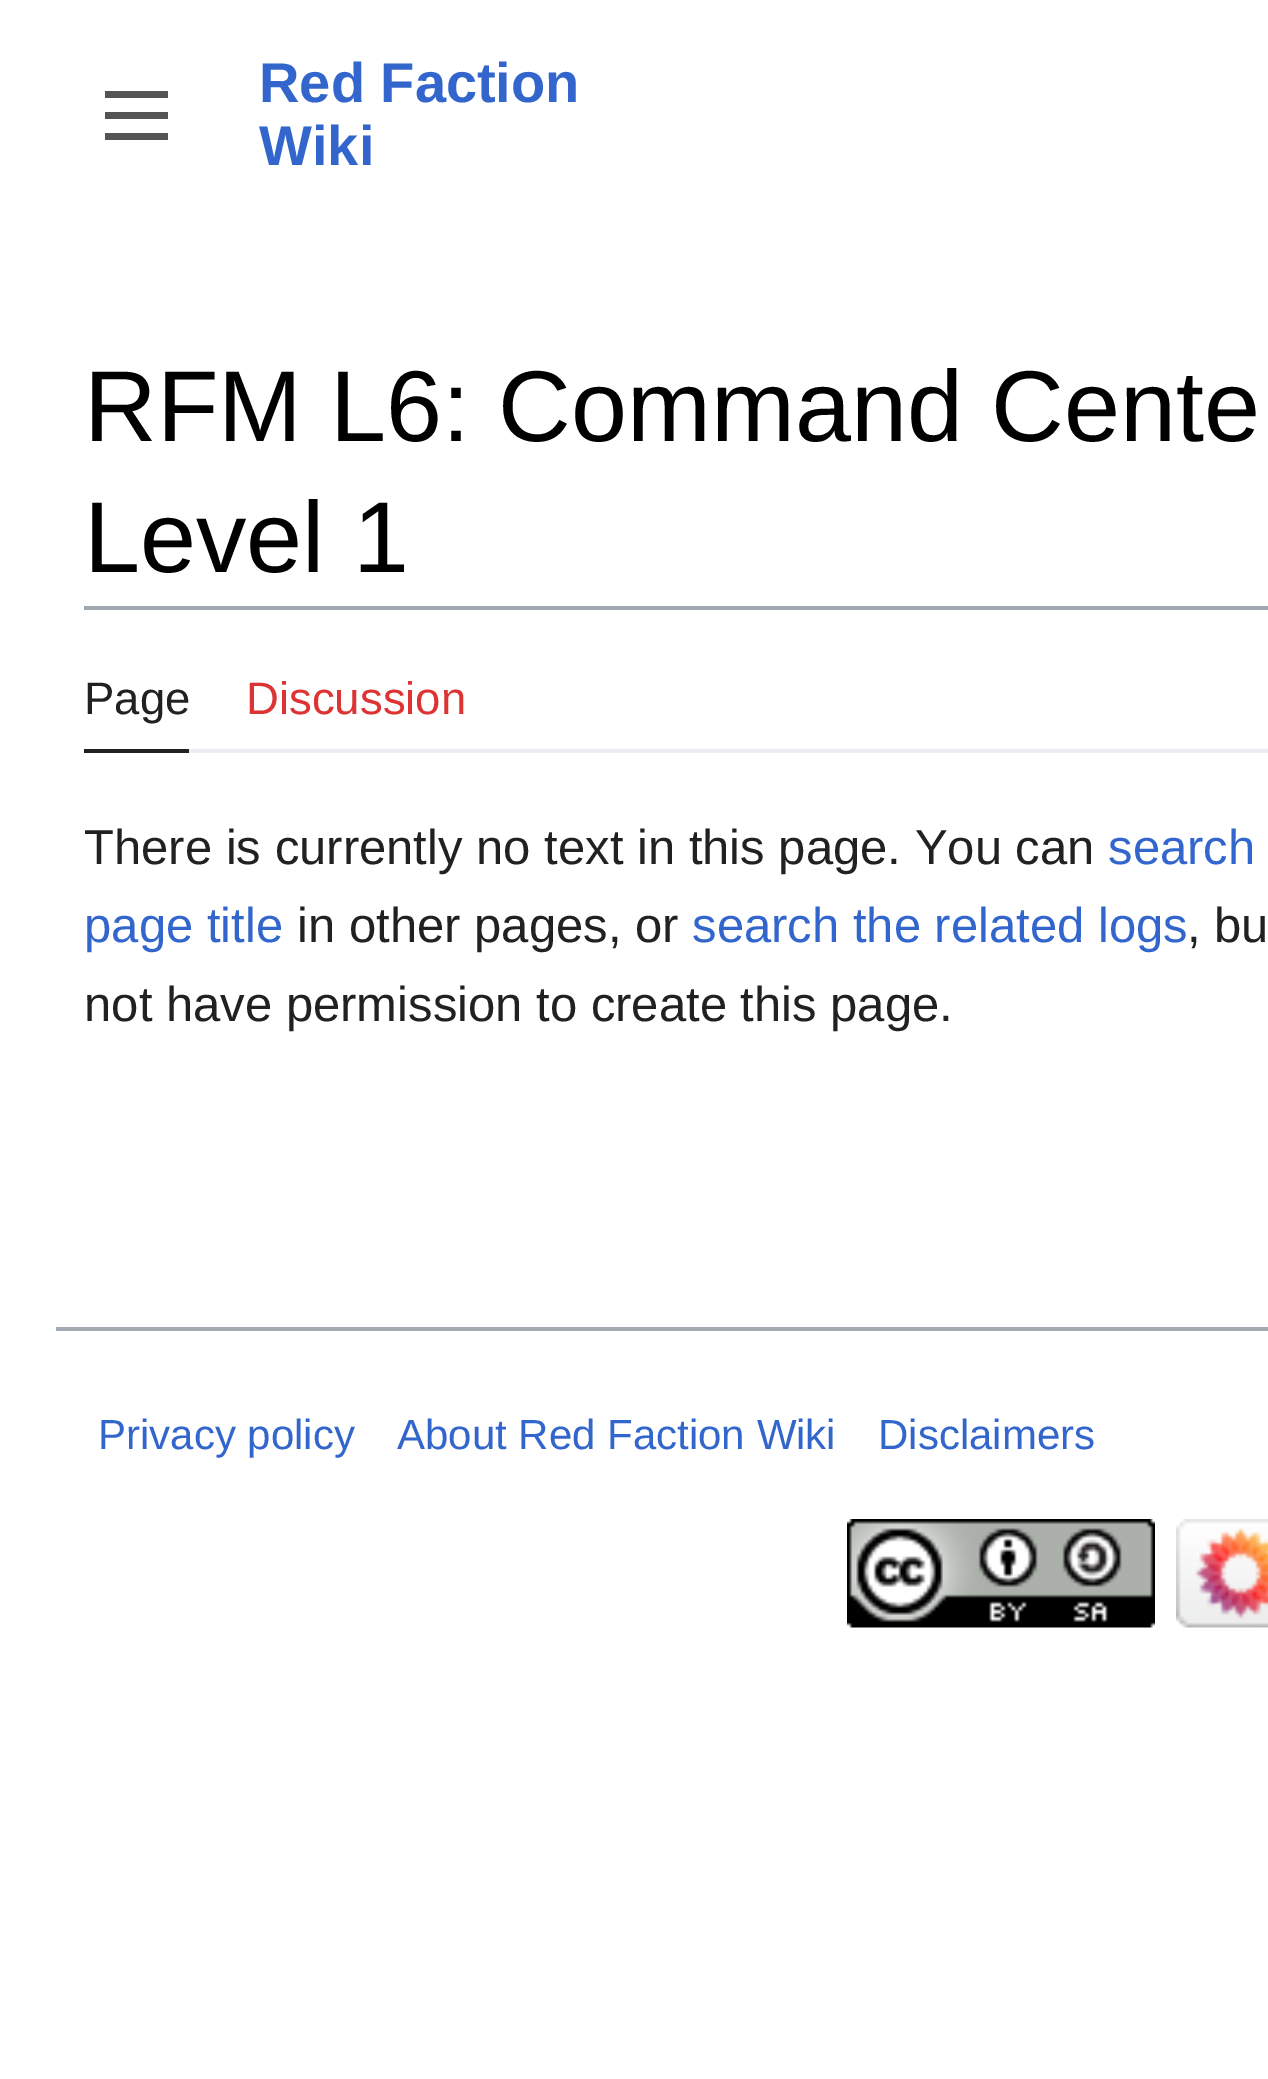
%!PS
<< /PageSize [1268 2079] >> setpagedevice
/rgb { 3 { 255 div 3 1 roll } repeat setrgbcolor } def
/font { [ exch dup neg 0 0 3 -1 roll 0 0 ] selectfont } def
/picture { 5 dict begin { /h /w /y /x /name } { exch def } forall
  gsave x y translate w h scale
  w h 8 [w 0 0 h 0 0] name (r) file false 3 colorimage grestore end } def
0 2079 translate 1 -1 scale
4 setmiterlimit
255 255 255 rgb
0 0 1268 2079 rectfill
84 84 84 rgb
105 91 moveto 105 98 lineto 168 98 lineto 168 91 lineto closepath 105 119 moveto 168 119 lineto 168 112 lineto 105 112 lineto closepath 105 140 moveto 168 140 lineto 168 133 lineto 105 133 lineto closepath fill
[
  [84 606 1184 4 162 169 177]
  [189 749 1079 4 234 236 240]
  [84 749 105 4 32 33 34]
  [56 1327 1212 4 162 169 177]
] { aload pop rgb rectfill } forall
(img/1.rgb) 847 1519 308 109 picture
(img/2.rgb) 1176 1519 92 109 picture
/LiberationSans-Bold 56 font
51 102 204 rgb
259 102 moveto (Red Faction) show
259 165 moveto (Wiki) show
/LiberationSans-Regular 100.75 font
0 0 0 rgb
84 441 moveto (RFM L6: Command Cente) show
84 572 moveto (Level 1) show
/LiberationSans-Regular 45.5 font
32 33 34 rgb
84 714 moveto (Page) show
221 51 51 rgb
246 714 moveto (Discussion) show
/LiberationSans-Regular 49 font
32 33 34 rgb
84 864 moveto (There is currently no text in this page. You can) show
51 102 204 rgb
1108 864 moveto (search) show
84 942 moveto (page title) show
32 33 34 rgb
297 942 moveto (in other pages, or) show
51 102 204 rgb
692 942 moveto (search the related logs) show
32 33 34 rgb
1187 942 moveto (, bu) show
84 1021 moveto (not have permission to create this page.) show
/LiberationSans-Regular 42 font
51 102 204 rgb
[
  [(Privacy policy) 98 1449]
  [(About Red Faction Wiki) 397 1449]
  [(Disclaimers) 878 1449]
] { aload pop moveto show } forall
showpage
